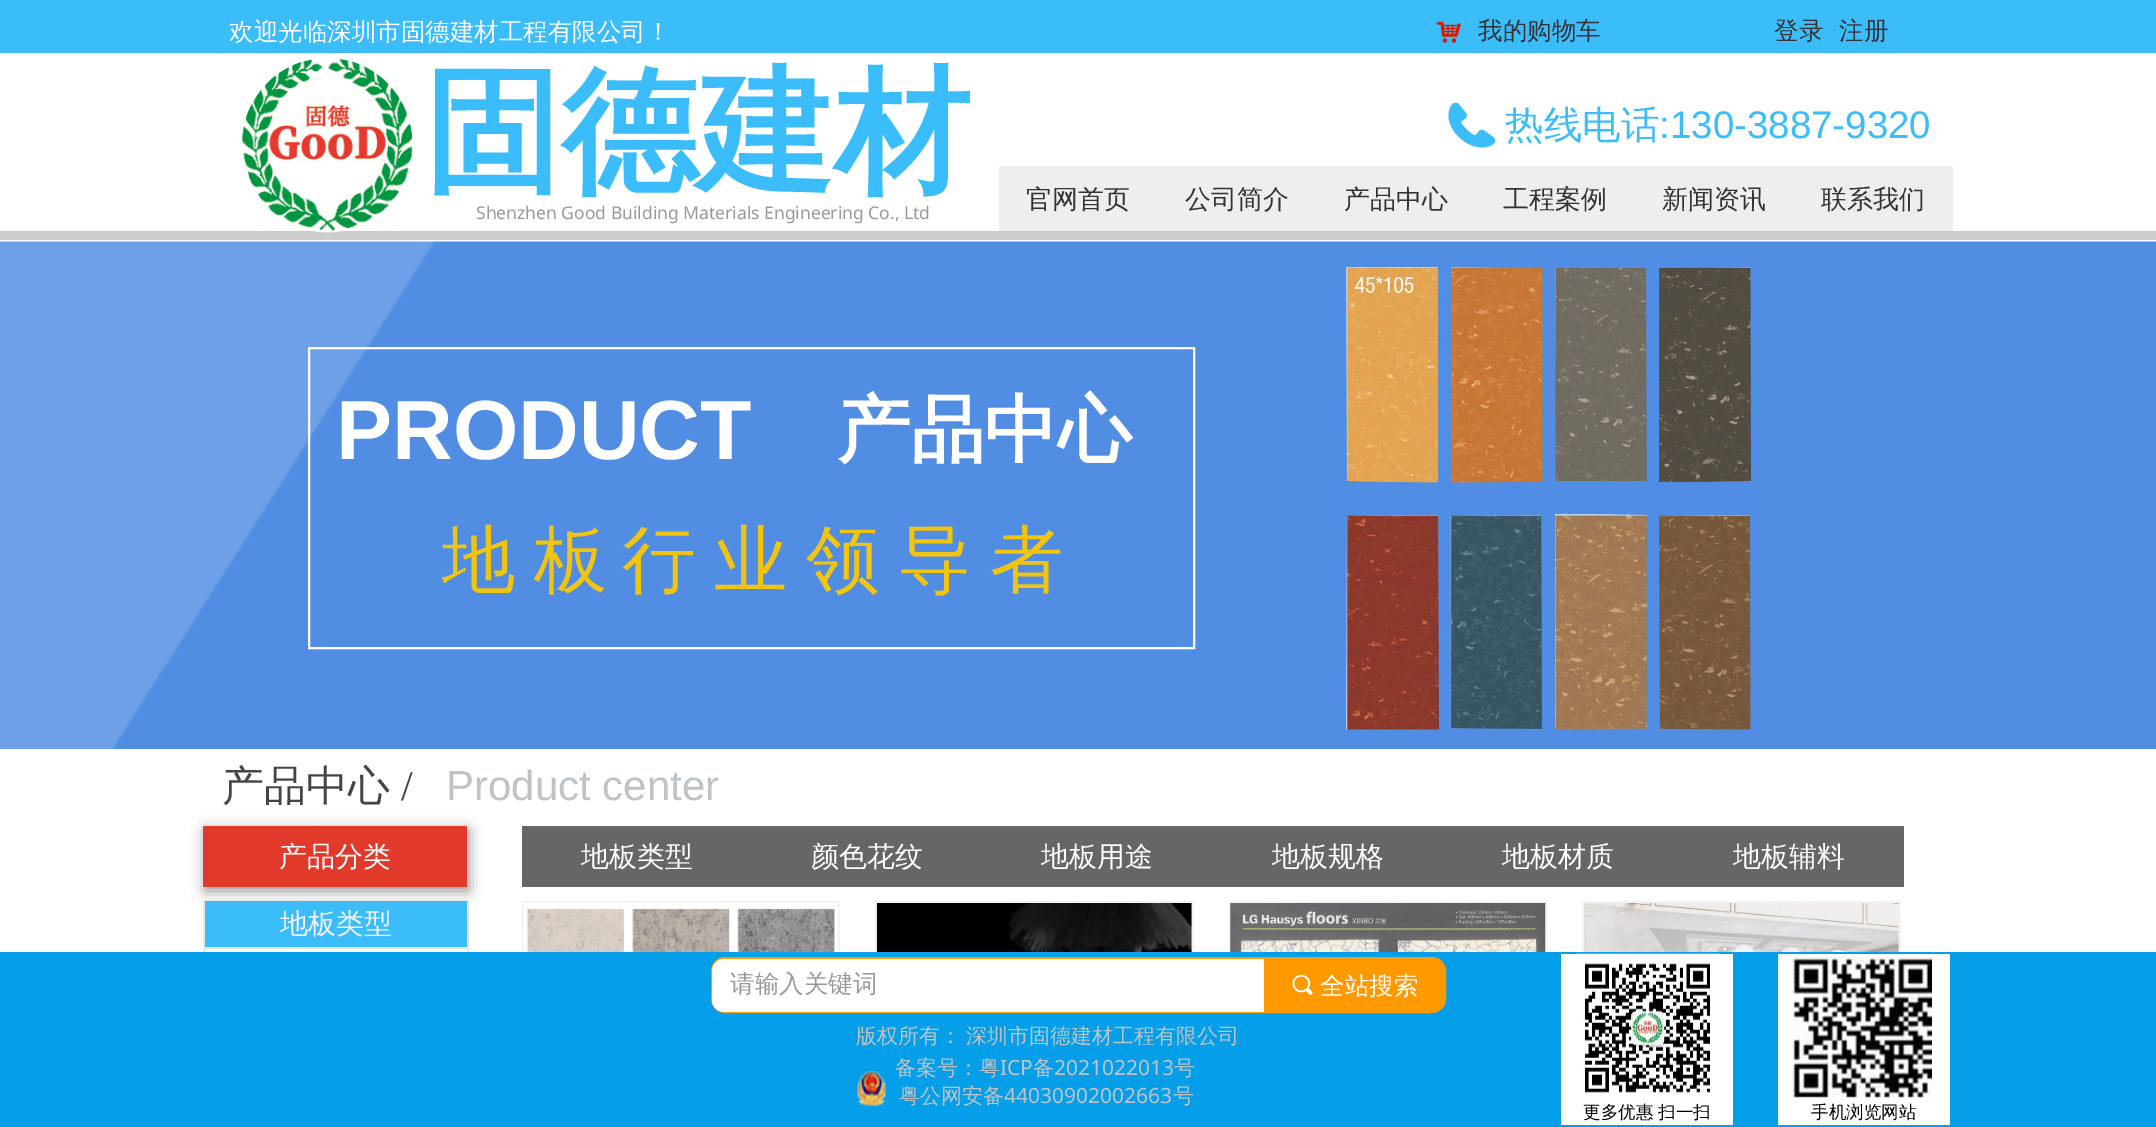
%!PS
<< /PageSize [2156 1127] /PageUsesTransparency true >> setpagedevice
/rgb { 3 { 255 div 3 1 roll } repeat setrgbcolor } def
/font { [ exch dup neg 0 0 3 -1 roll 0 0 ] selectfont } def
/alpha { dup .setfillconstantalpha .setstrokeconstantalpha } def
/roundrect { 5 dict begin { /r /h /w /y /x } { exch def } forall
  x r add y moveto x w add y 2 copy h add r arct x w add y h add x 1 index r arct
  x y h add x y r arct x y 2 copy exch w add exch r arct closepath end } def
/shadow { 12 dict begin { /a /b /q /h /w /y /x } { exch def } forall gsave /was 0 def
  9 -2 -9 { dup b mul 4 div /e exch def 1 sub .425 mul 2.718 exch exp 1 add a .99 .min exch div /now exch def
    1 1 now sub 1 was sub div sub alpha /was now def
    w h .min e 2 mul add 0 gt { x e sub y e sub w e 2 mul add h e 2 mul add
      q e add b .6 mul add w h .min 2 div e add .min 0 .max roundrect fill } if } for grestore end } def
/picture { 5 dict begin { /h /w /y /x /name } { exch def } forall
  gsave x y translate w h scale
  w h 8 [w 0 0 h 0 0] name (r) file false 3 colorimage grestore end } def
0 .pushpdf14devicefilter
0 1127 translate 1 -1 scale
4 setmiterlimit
255 255 255 rgb
0 0 2156 1127 rectfill
59 189 251 rgb
0 0 2156 53 rectfill
(img/1.rgb) 1436 21 25 22 picture
204 204 204 rgb
0 231 2156 9 rectfill
(img/2.rgb) 241 59 172 174 picture
(img/3.rgb) 1448 102 48 46 picture
238 238 238 rgb
999 166 954 65 rectfill
(img/4.rgb) 0 241 2156 508 picture
255 255 255 rgb
2 setlinewidth
309 348 885 300 rectstroke
(img/5.rgb) 1342 267 413 466 picture
231 231 231 rgb
204 901 264 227 rectstroke
59 189 251 rgb
205 901 262 46 rectfill
145 145 145 rgb
205 830 264 61 0 7 1 shadow
[
  [203 826 264 61 226 58 42]
  [522 826 1382 61 102 102 102]
  [205 947 262 2 231 231 231]
  [522 901 318 51 243 243 243]
] { aload pop rgb rectfill } forall
(img/6.rgb) 523 903 315 49 picture
875 901 319 51 rectfill
(img/7.rgb) 876 903 316 49 picture
1229 901 318 51 rectfill
(img/8.rgb) 1230 903 316 49 picture
1582 901 319 51 rectfill
(img/9.rgb) 1584 903 315 49 picture
5 159 233 rgb
0 952 2156 175 rectfill
255 153 0 rgb
712 958 733 54 13 roundrect stroke
255 255 255 rgb
724 959 moveto 1264 959 lineto 1264 1012 lineto 724 1012 lineto 717.5 1012 712 1006.5 712 1000 curveto 712 971 lineto 712 964.5 717.5 959 724 959 curveto closepath fill
255 153 0 rgb
1264 959 moveto 1432 959 lineto 1438.5 959 1444 964.5 1444 971 curveto 1444 1000 lineto 1444 1006.5 1438.5 1012 1432 1012 curveto 1264 1012 lineto closepath fill
(img/10.rgb) 1292 974 21 21 picture
(img/11.rgb) 857 1071 29 35 picture
255 255 255 rgb
1561 954 172 171 rectfill
(img/12.rgb) 1575 953 145 140 picture
1778 954 172 171 rectfill
(img/13.rgb) 1792 957 140 141 picture
/WenQuanYiZenHei-Medium 24.5 font
229 40 moveto (欢迎光临深圳市固德建材工程有限公司！) show
51 51 51 rgb
[
  [(我的购物车) 1478 39]
  [(登录) 1774 39]
  [(注册) 1839 39]
] { aload pop moveto show } forall
/WenQuanYiZenHei-Bold 136.5 font
59 189 251 rgb
424 179 moveto (固德建材) show
/NotoSans-Regular 17.5 font
153 153 153 rgb
476 219 moveto (Shenzhen Good Building Materials Engineering Co., Ltd) show
/WenQuanYiZenHei-Medium 38.5 font
59 189 251 rgb
1505 138 moveto (热线电话) show
/LiberationSans-Regular 38.5 font
1659 138 moveto (:130-3887-9320) show
/WenQuanYiZenHei-Medium 26 font
51 51 51 rgb
[
  [(官网首页) 1026 208]
  [(公司简介) 1185 208]
  [(产品中心) 1344 208]
  [(工程案例) 1503 208]
  [(新闻资讯) 1662 208]
  [(联系我们) 1821 208]
] { aload pop moveto show } forall
/LiberationSans-Bold 84 font
255 255 255 rgb
336 459 moveto (PRODUCT) show
/WenQuanYiZenHei-Bold 73.5 font
837 455 moveto (产品中心) show
/WenQuanYiZenHei-Medium 73.5 font
241 196 15 rgb
442 585 moveto -3.5 0 32 (地 板) widthshow
622 585 moveto -3.5 0 32 (行 业 领 导 者) widthshow
/WenQuanYiZenHei-Medium 42 font
68 68 68 rgb
222 800 moveto (产品中心) show
/LiberationSerif-Regular 42 font
401 800 moveto (/) show
/LiberationSans-Regular 42 font
189 195 199 rgb
446 800 moveto (Product center) show
/WenQuanYiZenHei-Medium 28 font
255 255 255 rgb
[
  [(产品分类) 279 866]
  [(地板类型) 581 866]
  [(颜色花纹) 811 866]
  [(地板用途) 1041 866]
  [(地板规格) 1272 866]
  [(地板材质) 1502 866]
  [(地板辅料) 1733 866]
] { aload pop moveto show } forall
243 243 243 rgb
280 933 moveto (地板类型) show
/WenQuanYiZenHei-Medium 24.5 font
153 153 153 rgb
730 992 moveto (请输入关键词) show
255 255 255 rgb
1320 994 moveto (全站搜索) show
/WenQuanYiZenHei-Medium 21 font
189 195 199 rgb
856 1043 moveto (版权所有：) show
gsave
810 1026 475 35 rectclip
966 1043 moveto (深圳市固德建材工程有限公司) show
grestore
895 1075 moveto (备案号：粤) show
/NotoSans-Regular 21 font
1000 1075 moveto (ICP) show
/WenQuanYiZenHei-Medium 21 font
1033 1075 moveto (备) show
/NotoSans-Regular 21 font
1054 1075 moveto (2021022013) show
/WenQuanYiZenHei-Medium 21 font
1174 1075 moveto (号) show
899 1103 moveto (粤公网安备) show
/NotoSans-Regular 21 font
1004 1103 moveto (44030902002663) show
/WenQuanYiZenHei-Medium 21 font
1173 1103 moveto (号) show
/WenQuanYiZenHei-Medium 17.5 font
0 0 0 rgb
1583 1118 moveto (更多优惠 扫一扫) show
1811 1118 moveto (手机浏览网站) show
.poppdf14devicefilter showpage
